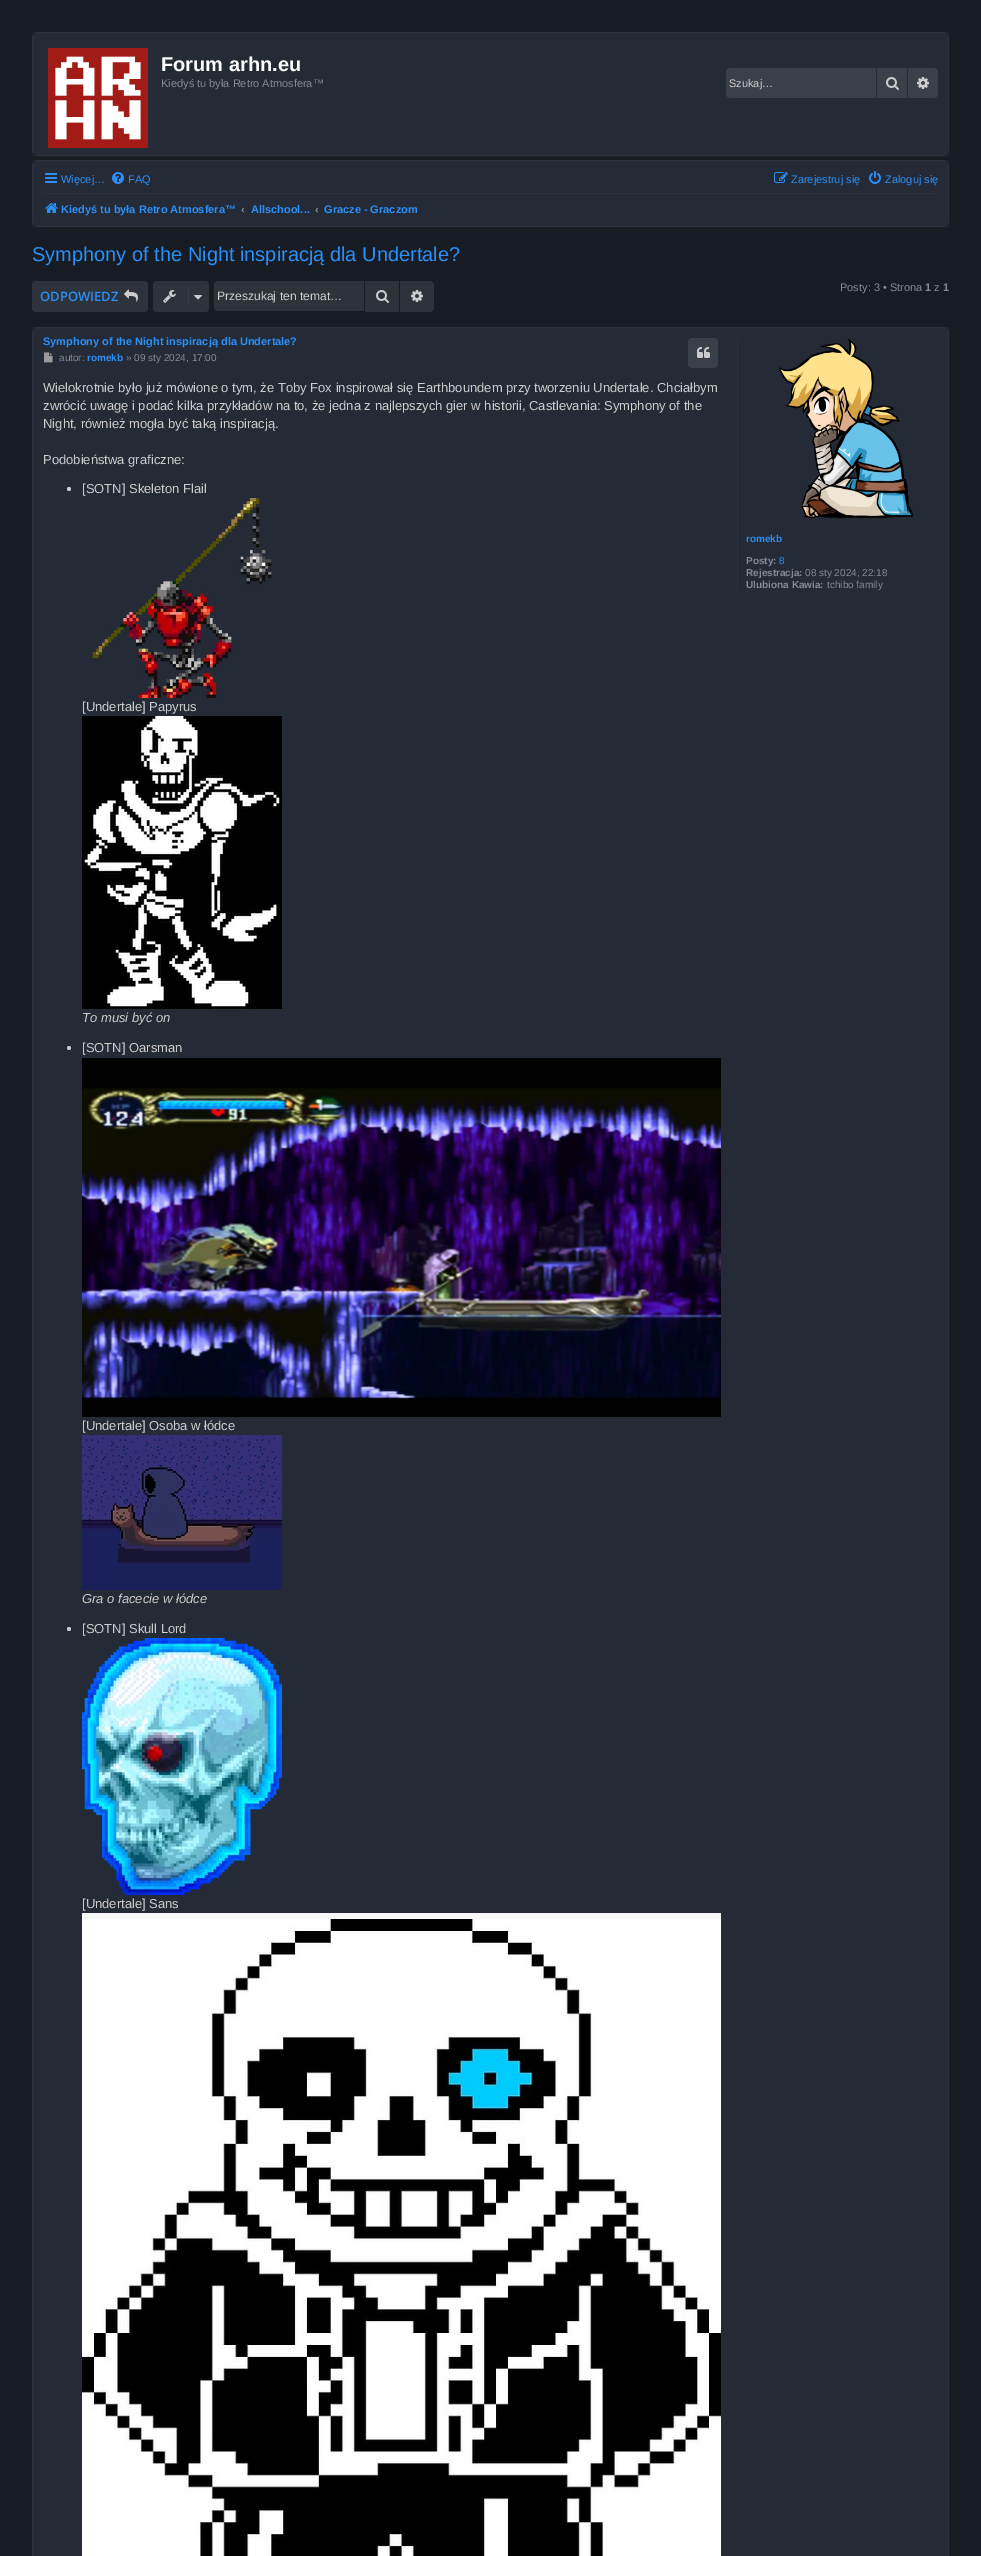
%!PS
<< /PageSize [981 2556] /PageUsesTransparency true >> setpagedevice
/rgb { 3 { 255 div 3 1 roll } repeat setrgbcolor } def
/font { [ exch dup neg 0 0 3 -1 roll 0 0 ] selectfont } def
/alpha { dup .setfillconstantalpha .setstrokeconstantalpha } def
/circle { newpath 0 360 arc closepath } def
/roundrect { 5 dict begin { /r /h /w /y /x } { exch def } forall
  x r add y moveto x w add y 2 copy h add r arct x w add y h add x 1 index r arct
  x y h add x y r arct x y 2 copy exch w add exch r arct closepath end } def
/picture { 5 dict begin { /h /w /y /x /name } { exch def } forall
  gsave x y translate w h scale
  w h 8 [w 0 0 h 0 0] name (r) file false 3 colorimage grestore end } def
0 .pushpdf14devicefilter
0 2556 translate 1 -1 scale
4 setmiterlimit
23 27 36 rgb
0 0 981 2556 rectfill
36 42 54 rgb
32 32 917 124 7 roundrect fill
0.04 alpha
255 255 255 rgb
32.5 32.5 916 123 rectstroke
1 alpha
(img/1.rgb) 48 48 100 100 picture
58 63 74 rgb
730 68 moveto 876 68 lineto 876 98 lineto 730 98 lineto 728 98 726 96 726 94 curveto 726 72 lineto 726 70 728 68 730 68 curveto closepath fill
877 68 30 30 rectfill
(img/2.rgb) 886 77 13 13 picture
908 68 moveto 934 68 lineto 936 68 938 70 938 72 curveto 938 94 lineto 938 96 936 98 934 98 curveto 908 98 lineto closepath fill
(img/3.rgb) 917 77 12 12 picture
36 42 54 rgb
32 160 917 67 7 roundrect fill
0.04 alpha
255 255 255 rgb
32.5 160.5 916 66 rectstroke
1 alpha
(img/4.rgb) 45 173 12 10 picture
(img/5.rgb) 112 172 12 12 picture
(img/6.rgb) 774 172 14 11 picture
(img/7.rgb) 869 171 12 13 picture
45 51 62 rgb
43 193 895 1 rectfill
(img/8.rgb) 45 203 13 10 picture
46 50 58 rgb
153 281 56 31 4 roundrect fill
(img/9.rgb) 163 290 13 13 picture
54 58 66 rgb
188 287 1 18 rectfill
(img/10.rgb) 194 295 8 5 picture
46 50 58 rgb
32 281 116 31 4 roundrect fill
(img/11.rgb) 124 289 14 13 picture
218 281 moveto 364 281 lineto 364 311 lineto 218 311 lineto 216 311 214 309 214 307 curveto 214 285 lineto 214 283 216 281 218 281 curveto closepath fill
365 281 34 31 rectfill
(img/12.rgb) 376 290 13 13 picture
400 281 moveto 430 281 lineto 432 281 434 283 434 285 curveto 434 308 lineto 434 310 432 312 430 312 curveto 400 312 lineto closepath fill
(img/13.rgb) 411 290 12 12 picture
36 42 54 rgb
32 327 917 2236 7 roundrect fill
0.04 alpha
255 255 255 rgb
32.5 327.5 916 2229 rectstroke
1 alpha
58 63 74 rgb
688 338 30 30 4 roundrect fill
(img/14.rgb) 697 347 13 11 picture
(img/15.rgb) 44 352 9 11 picture
204 204 204 rgb
69 489 2 circle fill
(img/16.rgb) 92 498 180 200 picture
(img/17.rgb) 82 716 200 293 picture
69 1048 2 circle fill
(img/18.rgb) 82 1058 639 359 picture
(img/19.rgb) 82 1435 200 155 picture
69 1629 2 circle fill
(img/20.rgb) 82 1638 200 257 picture
(img/21.rgb) 82 1913 639 643 picture
45 51 62 rgb
737 338 1 253 rectfill
(img/22.rgb) 779 338 134 181 picture
/LiberationSans-Bold 20 font
255 255 255 rgb
161 71 moveto (Forum arhn.eu) show
/LiberationSans-Regular 11 font
131 139 152 rgb
161 87 moveto (Kiedyś tu była Retro Atmosfera™) show
204 204 204 rgb
729 87 moveto (Szukaj…) show
42 143 247 rgb
[
  [(Więcej…) 61 183]
  [(FAQ) 128 183]
  [(Zarejestruj się) 791 183]
  [(Zaloguj się) 885 183]
] { aload pop moveto show } forall
/LiberationSans-Bold 11 font
61 213 moveto (Kiedyś tu była Retro Atmosfera™) show
131 139 152 rgb
241 213 moveto (‹) show
42 143 247 rgb
251 213 moveto (Allschool...) show
131 139 152 rgb
315 213 moveto (‹) show
42 143 247 rgb
324 213 moveto (Gracze - Graczom) show
/LiberationSans-Regular 20 font
32 261 moveto (Symphony of the Night inspiracją dla Undertale?) show
/LiberationSans-Regular 11 font
131 139 152 rgb
840 291 moveto (Posty: 3 • Strona) show
/LiberationSans-Bold 11 font
925 291 moveto (1) show
/LiberationSans-Regular 11 font
934 291 moveto (z) show
/LiberationSans-Bold 11 font
943 291 moveto (1) show
/OpenSans-SemiBold 13 font
42 143 247 rgb
40 301 moveto (ODPOWIEDZ) show
/LiberationSans-Regular 12.1 font
204 204 204 rgb
217 300 moveto (Przeszukaj ten temat…) show
/LiberationSans-Bold 11 font
42 143 247 rgb
43 345 moveto (Symphony of the Night inspiracją dla Undertale?) show
/LiberationSans-Regular 10 font
131 139 152 rgb
59 361 moveto (autor:) show
/LiberationSans-Bold 10 font
42 143 247 rgb
87 361 moveto (romekb) show
/LiberationSans-Regular 10 font
131 139 152 rgb
126 361 moveto (» 09 sty 2024, 17:00) show
/LiberationSans-Regular 13 font
204 204 204 rgb
[
  [(Wielokrotnie było już mówione o tym, że Toby Fox inspirował się Earthboundem przy tworzeniu Undertale. Chciałbym) 43 392]
  [(zwrócić uwagę i podać kilka przykładów na to, że jedna z najlepszych gier w historii, Castlevania: Symphony of the) 43 410]
  [(Night, również mogła być taką inspiracją.) 43 428]
  [(Podobieństwa graficzne:) 43 464]
  [([SOTN] Skeleton Flail) 82 493]
  [([Undertale] Papyrus) 82 711]
] { aload pop moveto show } forall
/LiberationSans-Italic 13 font
82 1022 moveto (To musi być on) show
/LiberationSans-Regular 13 font
82 1052 moveto ([SOTN] Oarsman) show
82 1430 moveto ([Undertale] Osoba w łódce) show
/LiberationSans-Italic 13 font
82 1603 moveto (Gra o facecie w łódce) show
/LiberationSans-Regular 13 font
82 1633 moveto ([SOTN] Skull Lord) show
82 1908 moveto ([Undertale] Sans) show
/LiberationSans-Bold 10 font
42 143 247 rgb
746 542 moveto (romekb) show
131 139 152 rgb
746 564 moveto (Posty:) show
/LiberationSans-Regular 10 font
42 143 247 rgb
779 564 moveto (8) show
/LiberationSans-Bold 10 font
131 139 152 rgb
746 576 moveto (Rejestracja:) show
/LiberationSans-Regular 10 font
805 576 moveto (08 sty 2024, 22:18) show
/LiberationSans-Bold 10 font
746 588 moveto (Ulubiona Kawia:) show
/LiberationSans-Regular 10 font
827 588 moveto (tchibo family) show
.poppdf14devicefilter showpage
